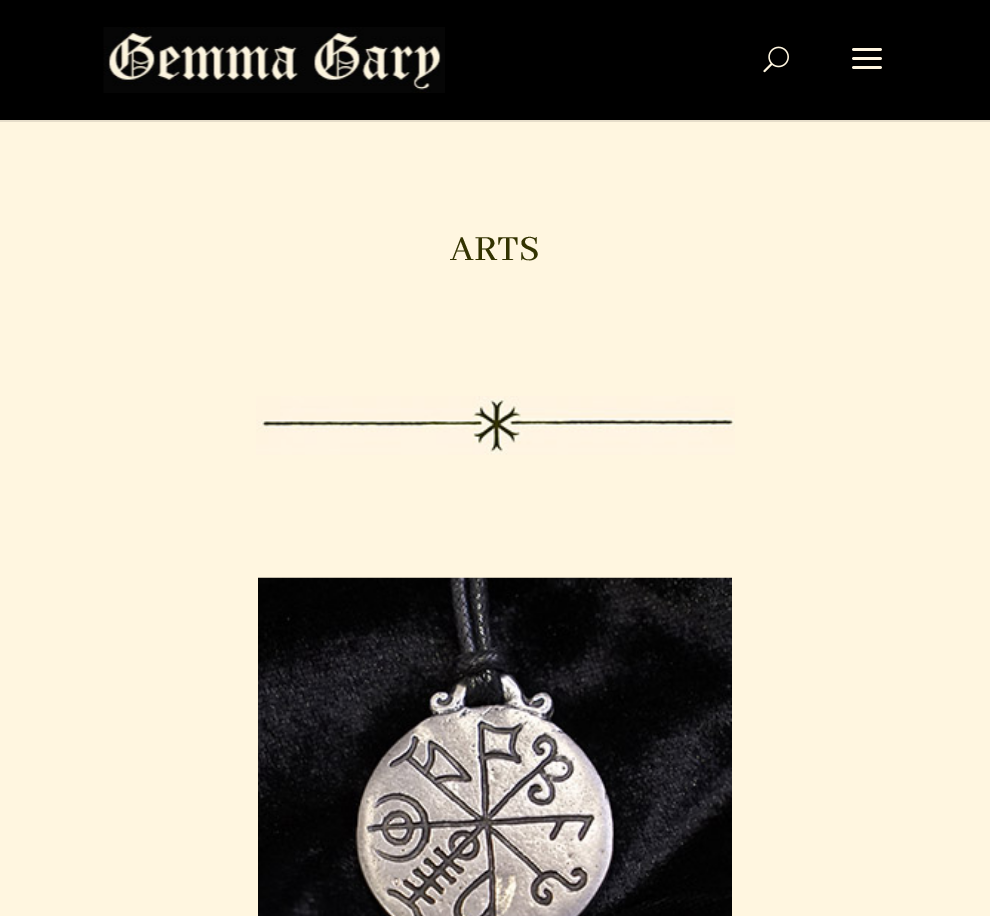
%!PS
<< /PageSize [990 916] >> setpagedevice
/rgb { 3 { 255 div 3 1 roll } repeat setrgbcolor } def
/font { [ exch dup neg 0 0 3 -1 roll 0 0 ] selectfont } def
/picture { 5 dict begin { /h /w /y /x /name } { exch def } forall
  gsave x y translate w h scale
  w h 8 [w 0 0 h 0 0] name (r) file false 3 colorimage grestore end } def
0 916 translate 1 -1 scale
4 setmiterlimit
255 246 224 rgb
0 0 990 916 rectfill
230 221 202 rgb
0 120 990 2 rectfill
0 0 0 rgb
0 0 990 120 rectfill
(img/1.rgb) 103 27 342 66 picture
(img/2.rgb) 763 46 26 27 picture
(img/3.rgb) 852 48 30 21 picture
(img/4.rgb) 256 396 479 59 picture
(img/5.rgb) 258 577 474 339 picture
/AbhayaLibreMedium-Medium 39 font
51 51 0 rgb
450 260 moveto (ARTS) show
showpage
